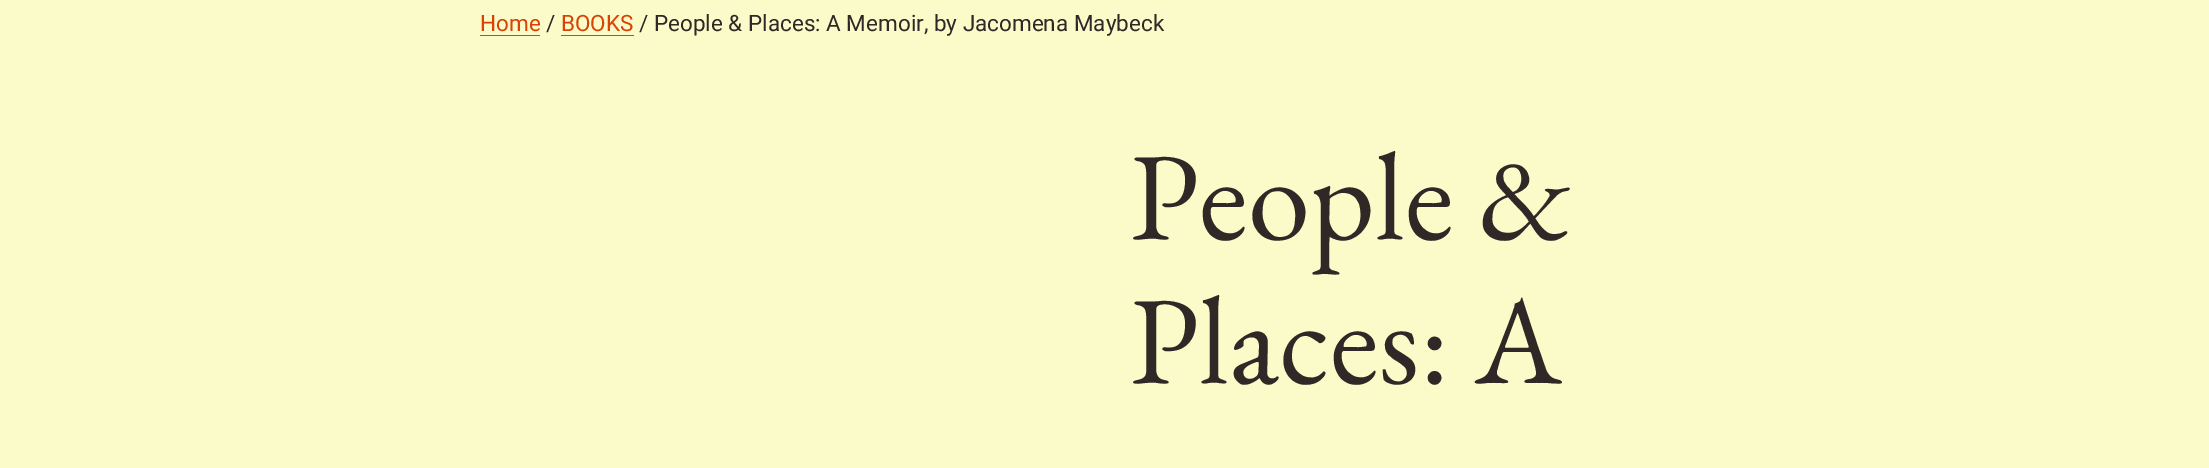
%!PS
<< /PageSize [2209 468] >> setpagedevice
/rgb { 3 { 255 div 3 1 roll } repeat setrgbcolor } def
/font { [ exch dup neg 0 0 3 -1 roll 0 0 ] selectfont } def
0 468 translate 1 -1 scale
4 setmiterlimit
251 251 201 rgb
0 0 2209 468 rectfill
218 67 6 rgb
480 35 60 1 rectfill
561 35 73 1 rectfill
/Roboto-Regular 22.5 font
480 31 moveto (Home) show
46 41 39 rgb
546 31 moveto (/) show
218 67 6 rgb
561 31 moveto (BOOKS) show
46 41 39 rgb
639 31 moveto (/ People & Places: A Memoir, by Jacomena Maybeck) show
/EBGaramond-Regular 125 font
1130 239 moveto (People &) show
1130 383 moveto (Places: A) show
showpage
